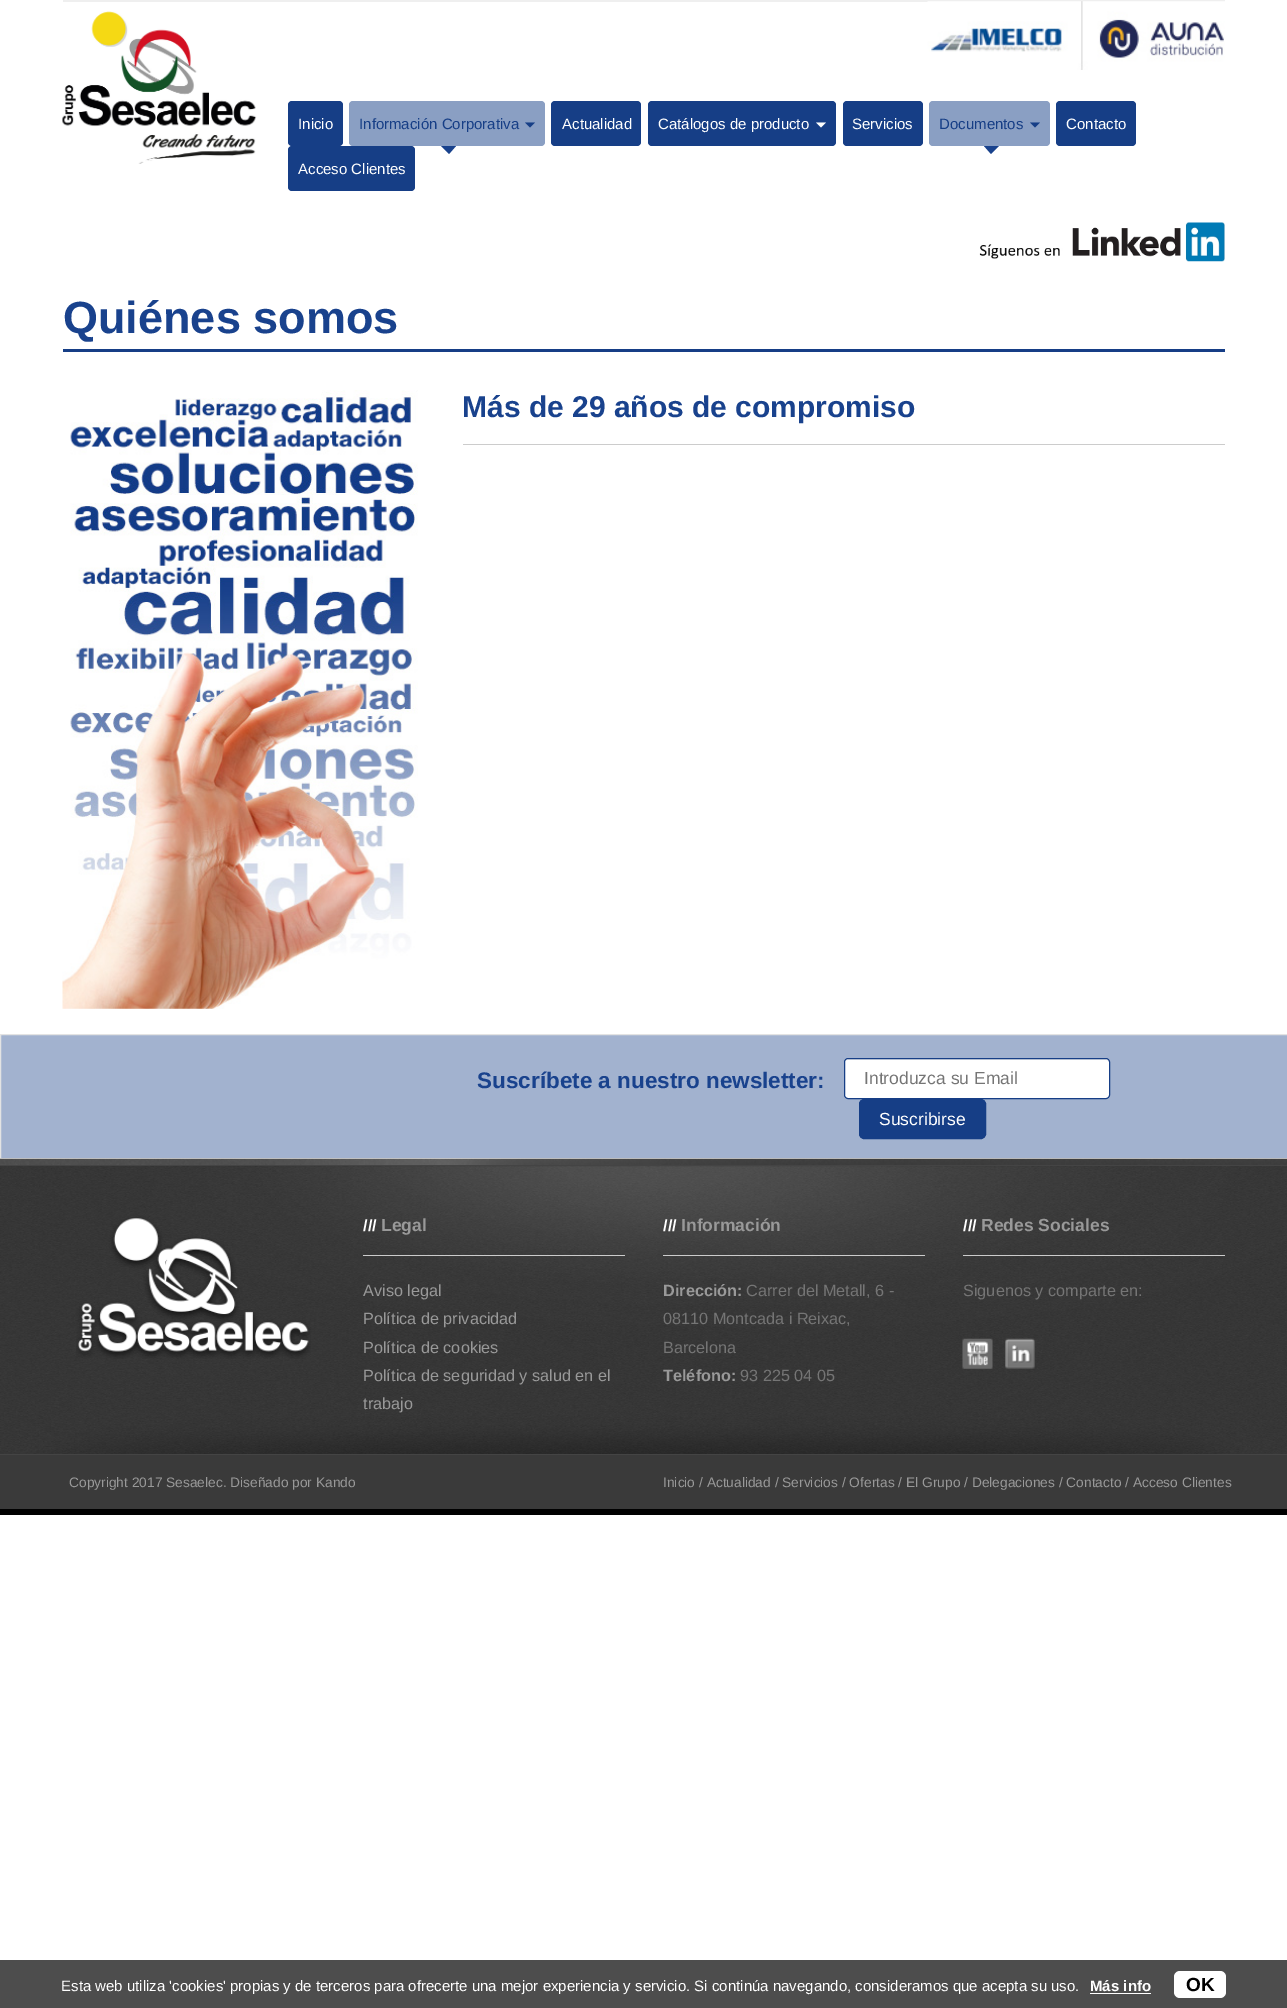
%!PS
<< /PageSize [1287 2008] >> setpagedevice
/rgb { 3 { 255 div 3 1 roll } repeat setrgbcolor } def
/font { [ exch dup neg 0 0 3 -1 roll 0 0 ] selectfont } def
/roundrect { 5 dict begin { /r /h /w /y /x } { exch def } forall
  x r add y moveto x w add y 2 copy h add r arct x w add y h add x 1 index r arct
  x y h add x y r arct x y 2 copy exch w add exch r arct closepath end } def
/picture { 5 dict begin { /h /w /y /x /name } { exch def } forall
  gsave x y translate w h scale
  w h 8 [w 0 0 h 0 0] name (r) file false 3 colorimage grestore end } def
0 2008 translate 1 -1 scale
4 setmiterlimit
255 255 255 rgb
0 0 1287 2008 rectfill
239 239 239 rgb
63 0 1162 2 rectfill
(img/1.rgb) 62 11 195 153 picture
(img/2.rgb) 927 1 298 69 picture
22 62 134 rgb
288 101 55 45 4 roundrect fill
138 159 195 rgb
349 101 196 45 4 roundrect fill
22 62 134 rgb
525 122.5 moveto 535 122.5 lineto 530 127.5 lineto closepath fill
25 66 141 rgb
441 146 moveto 456 146 lineto 449 154 lineto closepath fill
22 62 134 rgb
551 101 90 45 4 roundrect fill
648 101 188 45 4 roundrect fill
255 255 255 rgb
816 122.5 moveto 826 122.5 lineto 821 127.5 lineto closepath fill
22 62 134 rgb
843 101 80 45 4 roundrect fill
138 159 195 rgb
929 101 121 45 4 roundrect fill
22 62 134 rgb
1030 122.5 moveto 1040 122.5 lineto 1035 127.5 lineto closepath fill
25 66 141 rgb
984 146 moveto 999 146 lineto 991 154 lineto closepath fill
22 62 134 rgb
1056 101 80 45 4 roundrect fill
288 146 127 45 4 roundrect fill
(img/3.rgb) 979 222 246 40 picture
63 349 1162 3 rectfill
(img/4.rgb) 62 390 356 619 picture
204 204 204 rgb
463 444 762 1 rectfill
162 178 207 rgb
0.5 1034.5 moveto 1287.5 1034.5 lineto 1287.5 1158.5 lineto 0.5 1158.5 lineto closepath gsave fill grestore
227 227 227 rgb
stroke
255 255 255 rgb
844 1058 266 41 4 roundrect fill
236 236 236 rgb
848 1060 moveto 1106 1060 lineto 1108 1060 1109 1061 1109 1062 curveto 1109 1060 1108 1059 1106 1059 curveto 848 1059 lineto 845 1060 lineto 845 1062 lineto 845 1061 846 1060 848 1060 curveto closepath fill
22 62 134 rgb
844.5 1058.5 265 40 3.5 roundrect stroke
859.5 1099.5 126 39 4.5 roundrect gsave fill grestore
stroke
(img/5.rgb) 0 1158 1287 7 picture
(img/6.rgb) 0 1166 1287 288 picture
68 68 68 rgb
0 1165 1287 1 rectfill
0 1454 1287 1 rectfill
(img/7.rgb) 76 1217 235 142 picture
[
  [363 1255 262 1 204 204 204]
  [663 1255 262 1 204 204 204]
  [963 1255 262 1 204 204 204]
] { aload pop rgb rectfill } forall
(img/8.rgb) 962 1338 31 31 picture
(img/9.rgb) 1005 1338 30 31 picture
[
  [0 1455 1287 54 58 58 58]
  [0 1509 1287 6 0 0 0]
  [0 1960 1287 48 77 77 77]
  [1090 1993 61 1 255 255 255]
] { aload pop rgb rectfill } forall
1174 1971 52 27 6 roundrect fill
/LiberationSans-Regular 15 font
298 129 moveto (Inicio) show
22 62 134 rgb
359 129 moveto (Información Corporativa) show
255 255 255 rgb
[
  [(Actualidad) 562 129]
  [(Catálogos de producto) 658 129]
  [(Servicios) 852 129]
] { aload pop moveto show } forall
22 62 134 rgb
939 129 moveto (Documentos) show
255 255 255 rgb
1066 129 moveto (Contacto) show
298 174 moveto (Acceso Clientes) show
/LiberationSans-Bold 45 font
25 66 141 rgb
63 333 moveto (Quiénes somos) show
/LiberationSans-Bold 30 font
462 417 moveto (Más de 29 años de compromiso) show
/LiberationSans-Bold 22.5 font
477 1088 moveto (Suscríbete a nuestro newsletter:) show
/LiberationSans-Regular 17.5 font
117 117 117 rgb
864 1084 moveto (Introduzca su Email) show
255 255 255 rgb
879 1125 moveto (Suscribirse) show
/LiberationSans-Bold 16.25 font
363 1231 moveto (///) show
/LiberationSans-Bold 17.5 font
153 153 153 rgb
381 1231 moveto (Legal) show
/LiberationSans-Regular 16.25 font
[
  [(Aviso legal) 363 1296]
  [(Política de privacidad) 363 1324]
  [(Política de cookies) 363 1353]
  [(Política de seguridad y salud en el) 363 1381]
  [(trabajo) 363 1409]
] { aload pop moveto show } forall
/LiberationSans-Bold 16.25 font
255 255 255 rgb
663 1231 moveto (///) show
/LiberationSans-Bold 17.5 font
153 153 153 rgb
681 1231 moveto (Información) show
/LiberationSans-Bold 16.25 font
663 1296 moveto (Dirección:) show
/LiberationSans-Regular 16.25 font
117 117 117 rgb
[
  [(Carrer del Metall, 6 -) 746 1296]
  [(08110 Montcada i Reixac,) 663 1324]
  [(Barcelona) 663 1353]
] { aload pop moveto show } forall
/LiberationSans-Bold 16.25 font
153 153 153 rgb
663 1381 moveto (Teléfono:) show
/LiberationSans-Regular 16.25 font
117 117 117 rgb
740 1381 moveto (93 225 04 05) show
/LiberationSans-Bold 16.25 font
255 255 255 rgb
963 1231 moveto (///) show
/LiberationSans-Bold 17.5 font
153 153 153 rgb
981 1231 moveto (Redes Sociales) show
/LiberationSans-Regular 16.25 font
117 117 117 rgb
963 1296 moveto (Siguenos y comparte en:) show
/LiberationSans-Regular 13.75 font
153 153 153 rgb
69 1487 moveto (Copyright 2017 Sesaelec. Diseñado por Kando) show
663 1487 moveto (Inicio / Actualidad / Servicios / Ofertas / El Grupo / Delegaciones / Contacto / Acceso Clientes) show
/LiberationSans-Regular 15 font
255 255 255 rgb
61 1991 moveto (Esta web utiliza 'cookies' propias y de terceros para ofrecerte una mejor experiencia y servicio. Si continúa navegando, consideramos que acepta su uso.) show
/LiberationSans-Bold 15 font
1090 1991 moveto (Más info) show
/LiberationSans-Bold 19 font
0 0 0 rgb
1186 1991 moveto (OK) show
showpage
